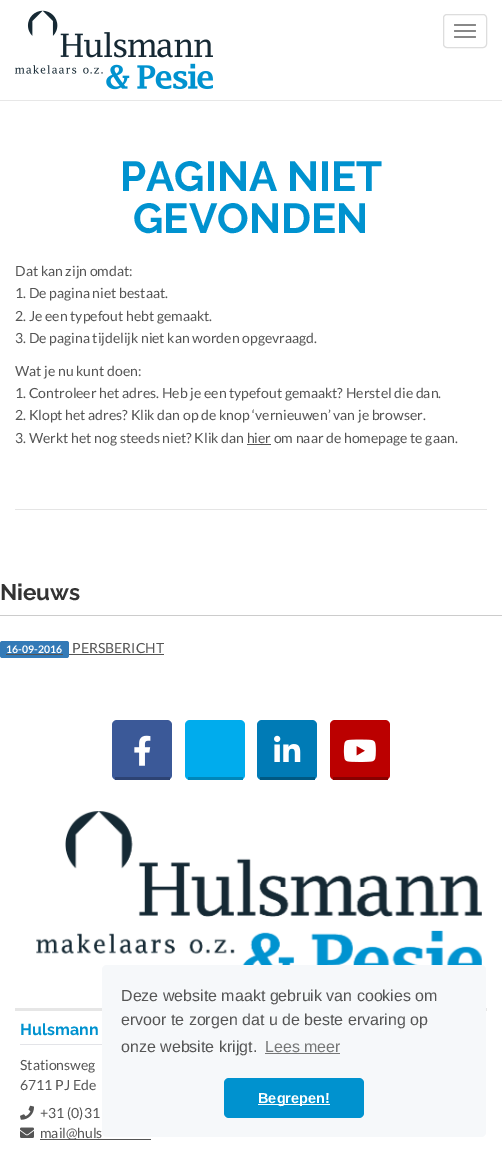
%!PS
<< /PageSize [502 1153] >> setpagedevice
/rgb { 3 { 255 div 3 1 roll } repeat setrgbcolor } def
/font { [ exch dup neg 0 0 3 -1 roll 0 0 ] selectfont } def
/roundrect { 5 dict begin { /r /h /w /y /x } { exch def } forall
  x r add y moveto x w add y 2 copy h add r arct x w add y h add x 1 index r arct
  x y h add x y r arct x y 2 copy exch w add exch r arct closepath end } def
/picture { 5 dict begin { /h /w /y /x /name } { exch def } forall
  gsave x y translate w h scale
  w h 8 [w 0 0 h 0 0] name (r) file false 3 colorimage grestore end } def
0 1153 translate 1 -1 scale
4 setmiterlimit
255 255 255 rgb
0 0 502 1153 rectfill
231 231 231 rgb
0 100 502 1 rectfill
(img/1.rgb) 15 10 198 80 picture
221 221 221 rgb
443.5 14.5 43 33 3.5 roundrect stroke
136 136 136 rgb
454 24 22 2 1 roundrect fill
454 30 22 2 1 roundrect fill
454 36 22 2 1 roundrect fill
[
  [15 509 472 1 229 229 229]
  [247 444 24 1 85 85 85]
  [0 615 502 1 204 204 204]
] { aload pop rgb rectfill } forall
51 122 183 rgb
0 641 69 17 2.5 roundrect fill
85 85 85 rgb
6 654 57 1 rectfill
69 654 95 1 rectfill
59 89 152 rgb
112 720 60 60 5 roundrect fill
45 67 115 rgb
115 777 55 3 rectfill
(img/2.rgb) 134 735 17 31 picture
0 172 237 rgb
185 720 60 60 5 roundrect fill
0 135 186 rgb
188 777 55 3 rectfill
0 123 182 rgb
257 720 60 60 5 roundrect fill
0 89 131 rgb
260 777 55 3 rectfill
(img/3.rgb) 274 735 27 27 picture
187 0 0 rgb
330 720 60 60 5 roundrect fill
136 0 0 rgb
333 777 55 3 rectfill
(img/4.rgb) 343 739 33 23 picture
230 230 230 rgb
15 1008 472 3 rectfill
(img/5.rgb) 36 811 446 155 picture
227 228 232 rgb
20 1044 82 1 rectfill
(img/6.rgb) 20 1105 14 15 picture
(img/7.rgb) 20 1127 14 11 picture
85 85 85 rgb
40 1139 111 1 rectfill
246 248 250 rgb
102 965 384 172 5 roundrect fill
117 118 118 rgb
265 1053 75 1 rectfill
0 146 207 rgb
224 1078 140 40 5 roundrect fill
255 255 255 rgb
258 1104 72 1 rectfill
/Raleway-Bold 42 font
0 146 207 rgb
120 191 moveto (PAGINA NIET) show
133 233 moveto (GEVONDEN) show
/Lato-Regular 14 font
85 85 85 rgb
[
  [(Dat kan zijn omdat:) 15 276]
  [(1. De pagina niet bestaat.) 15 298]
  [(2. Je een typefout hebt gemaakt.) 15 321]
  [(3. De pagina tijdelijk niet kan worden opgevraagd.) 15 343]
  [(Wat je nu kunt doen:) 15 376]
  [(1. Controleer het adres. Heb je een typefout gemaakt? Herstel die dan.) 15 398]
  [(2. Klopt het adres? Klik dan op de knop ‘vernieuwen’ van je browser.) 15 420]
  [(3. Werkt het nog steeds niet? Klik dan hier om naar de homepage te gaan.) 15 443]
] { aload pop moveto show } forall
/Raleway-Bold 22.5 font
51 51 51 rgb
0 600 moveto (Nieuws) show
/Lato-Bold 10.5 font
255 255 255 rgb
6 653 moveto (16-09-2016) show
/Lato-Regular 14 font
85 85 85 rgb
72 653 moveto (PERSBERICHT) show
/Raleway-Bold 16 font
0 146 207 rgb
20 1035 moveto (Hulsmann) show
/Lato-Regular 14 font
85 85 85 rgb
[
  [(Stationsweg) 20 1070]
  [(6711 PJ Ede) 20 1090]
  [(+31 \(0\)31) 40 1118]
  [(mail@huls) 40 1138]
] { aload pop moveto show } forall
/LiberationSans-Regular 16 font
[
  [(Deze website maakt gebruik van cookies om) 121 1001]
  [(ervoor te zorgen dat u de beste ervaring op) 121 1025]
  [(onze website krijgt.) 121 1052]
] { aload pop moveto show } forall
117 118 118 rgb
265 1052 moveto (Lees meer) show
/LiberationSans-Bold 14.5 font
255 255 255 rgb
258 1103 moveto (Begrepen!) show
showpage
